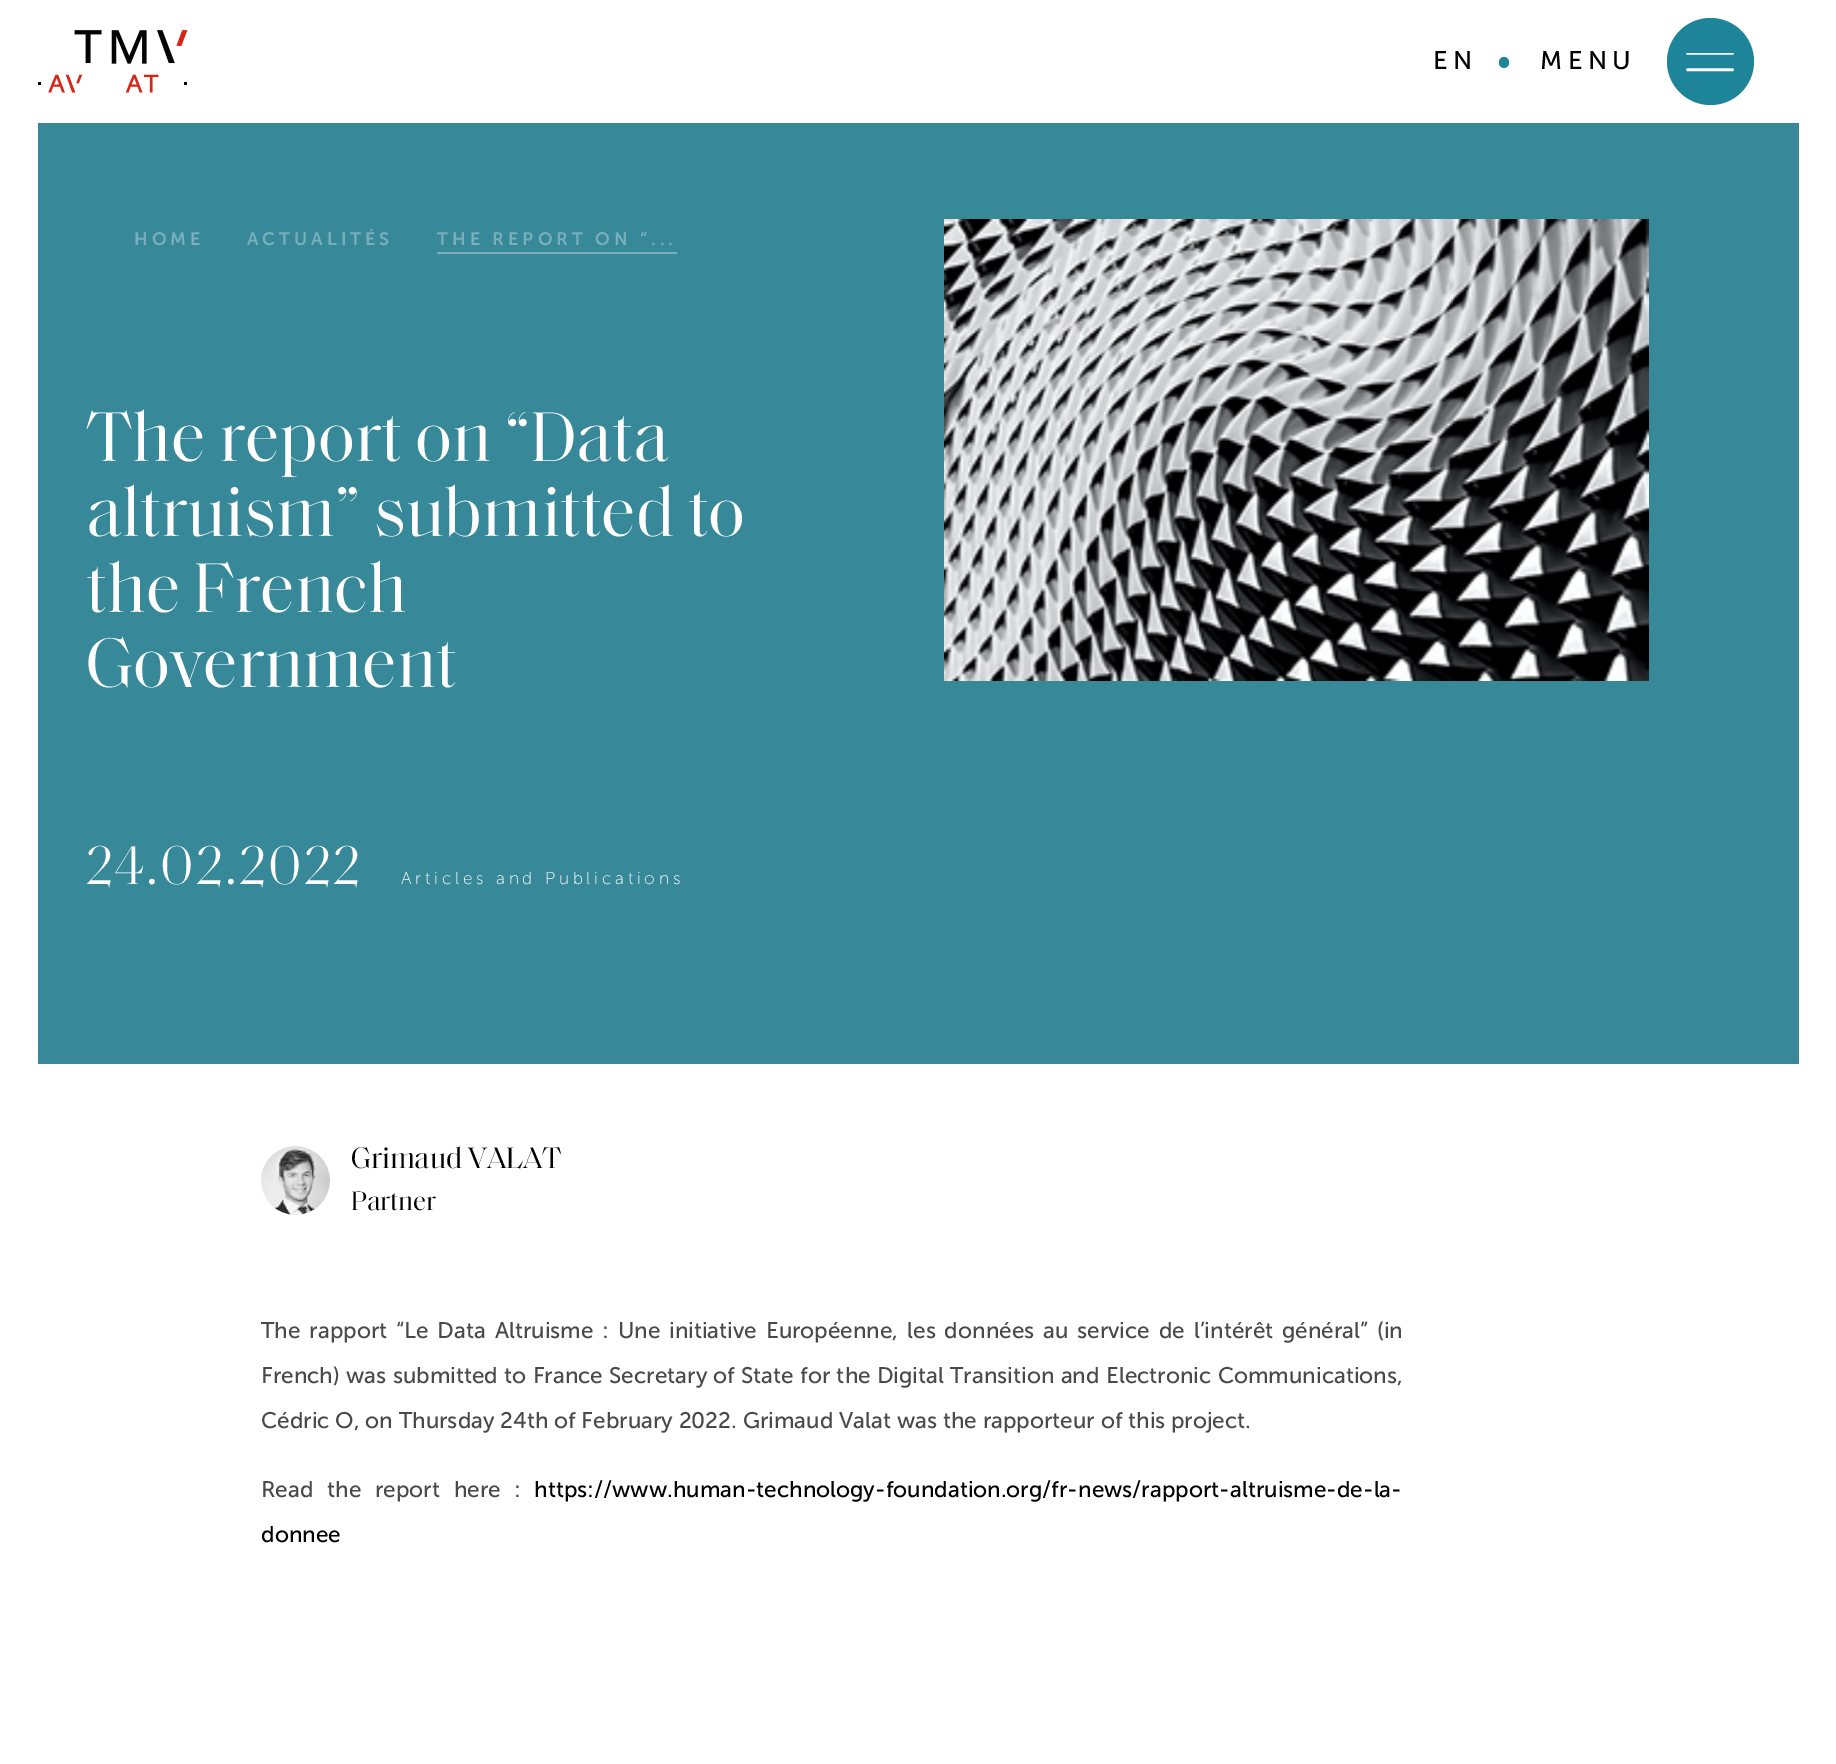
%!PS
<< /PageSize [1836 1764] >> setpagedevice
/rgb { 3 { 255 div 3 1 roll } repeat setrgbcolor } def
/font { [ exch dup neg 0 0 3 -1 roll 0 0 ] selectfont } def
/circle { newpath 0 360 arc closepath } def
/roundrect { 5 dict begin { /r /h /w /y /x } { exch def } forall
  x r add y moveto x w add y 2 copy h add r arct x w add y h add x 1 index r arct
  x y h add x y r arct x y 2 copy exch w add exch r arct closepath end } def
/picture { 5 dict begin { /h /w /y /x /name } { exch def } forall
  gsave x y translate w h scale
  w h 8 [w 0 0 h 0 0] name (r) file false 3 colorimage grestore end } def
0 1764 translate 1 -1 scale
4 setmiterlimit
255 255 255 rgb
0 0 1836 1764 rectfill
(img/1.rgb) 38 30 150 63 picture
30 132 153 rgb
1499 57 10 11 5 roundrect fill
1710.5 61.5 43.5 circle fill
(img/2.rgb) 1686 53 48 19 picture
55 136 153 rgb
38 123 1761 941 rectfill
121 175 187 rgb
437 252 240 2 rectfill
(img/3.rgb) 944 219 705 462 picture
(img/4.rgb) 261 1146 69 69 picture
/MuseoSans-Regular 25.5 font
0 0 0 rgb
1433 69 moveto 5.5 0 (EN) ashow
1540 69 moveto 5.5 0 (MENU) ashow
/MuseoSans-SemiBold 18 font
121 175 187 rgb
134 245 moveto 4 0 (HOME) ashow
247 245 moveto 4 0 (ACTUALITÉS) ashow
437 245 moveto 4 0 (THE REPORT ON “...) ashow
/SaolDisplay-Regular 71.25 font
255 255 255 rgb
[
  [(The report on “Data) 86 461]
  [(altruism” submitted to) 86 536]
  [(the French) 86 612]
  [(Government) 86 687]
] { aload pop moveto show } forall
/SaolDisplay-Light 55.5 font
86 884 moveto 2.25 0 (24.02.2022) ashow
/MuseoSans-ExtraLight 17.25 font
401 884 moveto 3.8 0 (Articles and Publications) ashow
/SaolDisplay-Regular 30 font
0 0 0 rgb
351 1168 moveto (Grimaud VALAT) show
/SaolDisplay-Regular 27 font
351 1210 moveto (Partner) show
/MuseoSans-Regular 22.5 font
73 73 73 rgb
261 1338 moveto 3.1 0 32 (The rapport “Le Data Altruisme : Une initiative Européenne, les données au service de l’intérêt général” \(in) widthshow
261 1383 moveto 0.5 0 32 (French\) was submitted to France Secretary of State for the Digital Transition and Electronic Communications,) widthshow
261 1428 moveto (Cédric O, on Thursday 24th of February 2022. Grimaud Valat was the rapporteur of this project.) show
261 1497 moveto 8 0 32 (Read the report here :) widthshow
0 0 0 rgb
534 1497 moveto (https://www.human-technology-foundation.org/fr-news/rapport-altruisme-de-la-) show
261 1542 moveto (donnee) show
showpage
